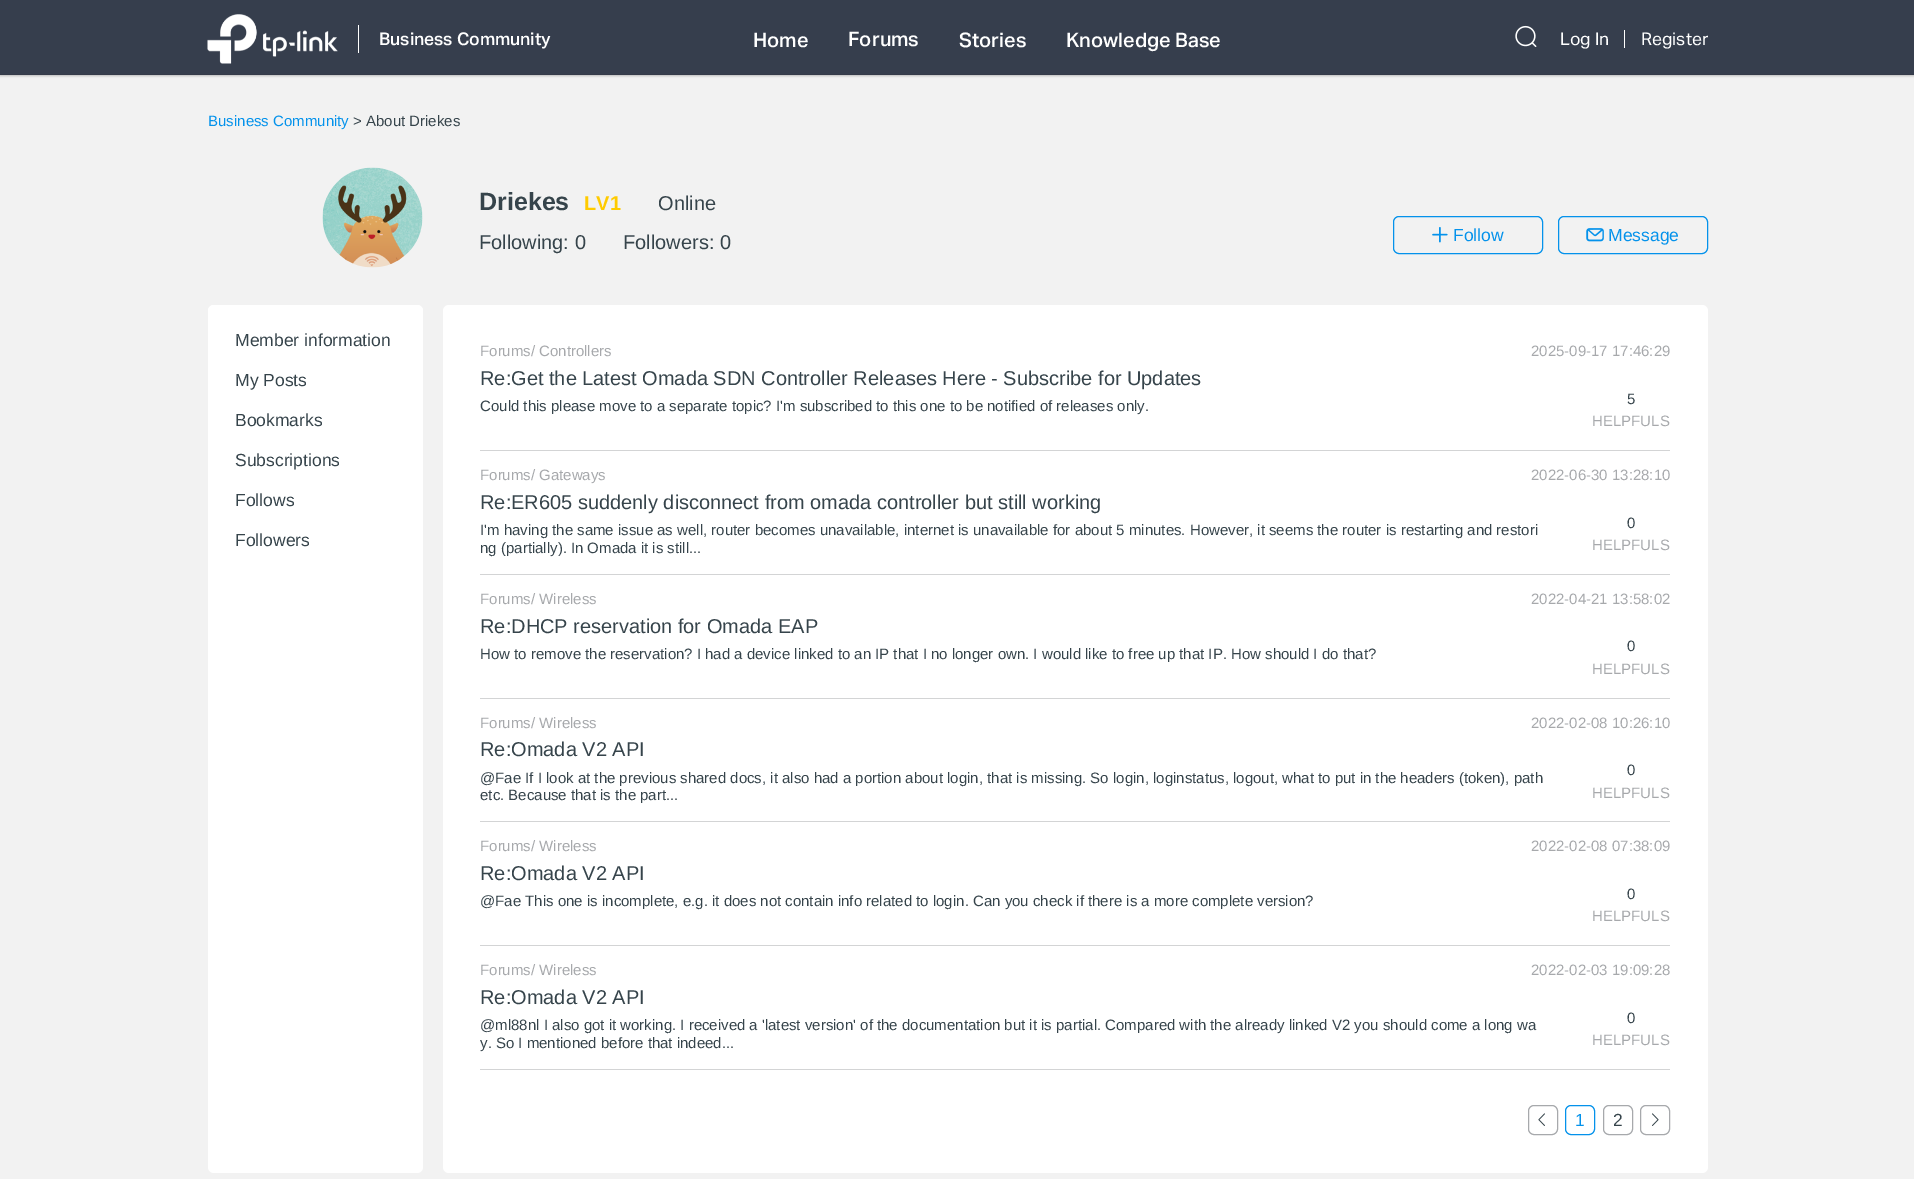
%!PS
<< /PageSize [1914 1179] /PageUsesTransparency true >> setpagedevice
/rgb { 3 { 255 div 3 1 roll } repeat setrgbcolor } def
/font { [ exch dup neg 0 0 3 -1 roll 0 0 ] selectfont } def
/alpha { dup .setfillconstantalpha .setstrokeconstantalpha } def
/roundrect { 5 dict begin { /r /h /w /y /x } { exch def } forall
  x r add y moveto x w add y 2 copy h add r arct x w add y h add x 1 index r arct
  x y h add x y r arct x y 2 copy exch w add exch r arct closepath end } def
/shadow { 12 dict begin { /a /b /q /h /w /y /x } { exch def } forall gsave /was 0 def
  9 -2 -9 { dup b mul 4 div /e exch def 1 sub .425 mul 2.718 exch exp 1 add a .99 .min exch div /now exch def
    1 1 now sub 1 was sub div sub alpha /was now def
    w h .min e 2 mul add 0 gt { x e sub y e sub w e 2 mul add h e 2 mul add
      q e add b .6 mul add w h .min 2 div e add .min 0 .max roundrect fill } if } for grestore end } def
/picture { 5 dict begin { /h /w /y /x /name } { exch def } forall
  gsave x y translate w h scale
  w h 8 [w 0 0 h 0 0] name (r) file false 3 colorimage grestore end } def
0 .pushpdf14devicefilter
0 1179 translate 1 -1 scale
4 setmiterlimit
242 242 242 rgb
0 0 1914 1179 rectfill
54 62 77 rgb
0 0 1914 75 rectfill
(img/1.rgb) 207 14 131 50 picture
255 255 255 rgb
358 25 1 28 rectfill
(img/2.rgb) 1515 25 22 22 picture
1624 30 1 18 rectfill
33 33 33 rgb
0 75 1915 1 0 1 0.3 shadow
(img/3.rgb) 322 167 101 101 picture
4 146 235 rgb
1393.5 216.5 149 37 5.5 roundrect stroke
(img/4.rgb) 1432 227 16 16 picture
1558.5 216.5 149 37 5.5 roundrect stroke
(img/5.rgb) 1586 228 18 14 picture
255 255 255 rgb
208 305 215 868 6 roundrect fill
208 305 215 270 6 roundrect fill
443 305 1265 868 6 roundrect fill
[
  [480 450 1190 1 211 212 213]
  [480 574 1190 1 211 212 213]
  [480 698 1190 1 211 212 213]
  [480 821 1190 1 211 212 213]
  [480 945 1190 1 211 212 213]
  [480 1069 1190 1 211 212 213]
] { aload pop rgb rectfill } forall
167 169 172 rgb
1528.5 1105.5 29 29 5.5 roundrect stroke
(img/6.rgb) 1538 1113 7 13 picture
4 146 235 rgb
1565.5 1105.5 29 29 5.5 roundrect stroke
167 169 172 rgb
1603.5 1105.5 29 29 5.5 roundrect stroke
1640.5 1105.5 29 29 5.5 roundrect stroke
(img/7.rgb) 1652 1113 7 13 picture
/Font-Medium 17.5 font
255 255 255 rgb
379 45 moveto (Business Community) show
/Font-Medium 20 font
[
  [(Home) 753 47]
  [(Forums) 848 46]
  [(Stories) 959 47]
  [(Knowledge Base) 1066 47]
] { aload pop moveto show } forall
/Font-Regular 17.5 font
1560 45 moveto (Log In) show
1641 45 moveto (Register) show
/LiberationSans-Regular 15 font
4 146 235 rgb
208 126 moveto (Business Community) show
54 68 75 rgb
353 126 moveto (> About Driekes) show
/LiberationSans-Bold 25 font
479 210 moveto (Driekes) show
/LiberationSans-Bold 20 font
255 203 0 rgb
584 210 moveto (LV1) show
/LiberationSans-Regular 20 font
54 68 75 rgb
[
  [(Online) 658 210]
  [(Following: 0) 479 249]
  [(Followers: 0) 623 249]
] { aload pop moveto show } forall
/LiberationSans-Regular 17.5 font
4 146 235 rgb
1453 241 moveto (Follow) show
1608 241 moveto (Message) show
54 68 75 rgb
[
  [(Member information) 235 346]
  [(My Posts) 235 386]
  [(Bookmarks) 235 426]
  [(Subscriptions) 235 466]
  [(Follows) 235 506]
  [(Followers) 235 546]
] { aload pop moveto show } forall
/LiberationSans-Regular 15 font
167 169 172 rgb
480 356 moveto (Forums/ Controllers) show
1531 356 moveto (2025-09-17 17:46:29) show
/LiberationSans-Regular 20 font
54 68 75 rgb
480 385 moveto (Re:Get the Latest Omada SDN Controller Releases Here - Subscribe for Updates) show
/LiberationSans-Regular 15 font
480 411 moveto (Could this please move to a separate topic? I'm subscribed to this one to be notified of releases only.) show
1627 404 moveto (5) show
167 169 172 rgb
[
  [(HELPFULS) 1592 426]
  [(Forums/ Gateways) 480 480]
  [(2022-06-30 13:28:10) 1531 480]
] { aload pop moveto show } forall
/LiberationSans-Regular 20 font
54 68 75 rgb
480 509 moveto (Re:ER605 suddenly disconnect from omada controller but still working) show
/LiberationSans-Regular 15 font
[
  [(I'm having the same issue as well, router becomes unavailable, internet is unavailable for about 5 minutes. However, it seems the router is restarting and restori) 480 535]
  [(ng \(partially\). In Omada it is still...) 480 553]
  [(0) 1627 528]
] { aload pop moveto show } forall
167 169 172 rgb
[
  [(HELPFULS) 1592 550]
  [(Forums/ Wireless) 480 604]
  [(2022-04-21 13:58:02) 1531 604]
] { aload pop moveto show } forall
/LiberationSans-Regular 20 font
54 68 75 rgb
480 633 moveto (Re:DHCP reservation for Omada EAP) show
/LiberationSans-Regular 15 font
480 659 moveto (How to remove the reservation? I had a device linked to an IP that I no longer own. I would like to free up that IP. How should I do that?) show
1627 651 moveto (0) show
167 169 172 rgb
[
  [(HELPFULS) 1592 674]
  [(Forums/ Wireless) 480 728]
  [(2022-02-08 10:26:10) 1531 728]
] { aload pop moveto show } forall
/LiberationSans-Regular 20 font
54 68 75 rgb
480 756 moveto (Re:Omada V2 API) show
/LiberationSans-Regular 15 font
[
  [(@Fae If I look at the previous shared docs, it also had a portion about login, that is missing. So login, loginstatus, logout, what to put in the headers \(token\), path) 480 783]
  [(etc. Because that is the part...) 480 800]
  [(0) 1627 775]
] { aload pop moveto show } forall
167 169 172 rgb
[
  [(HELPFULS) 1592 798]
  [(Forums/ Wireless) 480 851]
  [(2022-02-08 07:38:09) 1531 851]
] { aload pop moveto show } forall
/LiberationSans-Regular 20 font
54 68 75 rgb
480 880 moveto (Re:Omada V2 API) show
/LiberationSans-Regular 15 font
480 906 moveto (@Fae This one is incomplete, e.g. it does not contain info related to login. Can you check if there is a more complete version?) show
1627 899 moveto (0) show
167 169 172 rgb
[
  [(HELPFULS) 1592 921]
  [(Forums/ Wireless) 480 975]
  [(2022-02-03 19:09:28) 1531 975]
] { aload pop moveto show } forall
/LiberationSans-Regular 20 font
54 68 75 rgb
480 1004 moveto (Re:Omada V2 API) show
/LiberationSans-Regular 15 font
[
  [(@ml88nl I also got it working. I received a 'latest version' of the documentation but it is partial. Compared with the already linked V2 you should come a long wa) 480 1030]
  [(y. So I mentioned before that indeed...) 480 1048]
  [(0) 1627 1023]
] { aload pop moveto show } forall
167 169 172 rgb
1592 1045 moveto (HELPFULS) show
/LiberationSans-Regular 17.5 font
4 146 235 rgb
1575 1126 moveto (1) show
54 68 75 rgb
1613 1126 moveto (2) show
.poppdf14devicefilter showpage
